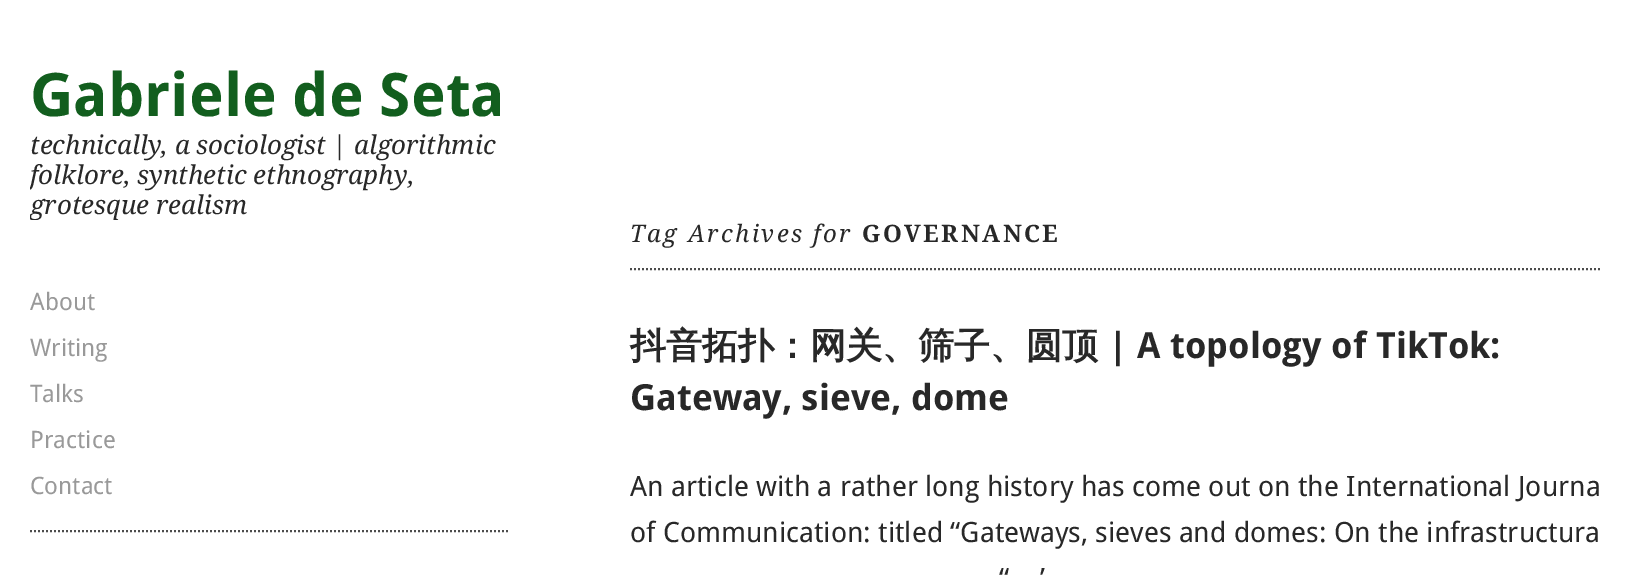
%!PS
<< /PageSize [1632 582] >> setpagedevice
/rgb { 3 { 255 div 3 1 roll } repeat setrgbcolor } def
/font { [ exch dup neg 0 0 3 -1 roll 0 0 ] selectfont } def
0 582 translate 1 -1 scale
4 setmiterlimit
255 255 255 rgb
0 0 1632 582 rectfill
76 76 76 rgb
2 setlinewidth
[2 2] 0 setdash
30 531 moveto 510 531 lineto stroke
gsave
470 220 1132 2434 rectclip
630 269 moveto 1618 269 lineto stroke
grestore
/DroidSans-Bold 60 font
18 94 30 rgb
30 116 moveto (Gabriele de Seta) show
/DroidSerif-Italic 26 font
40 40 40 rgb
30 154 moveto (technically, a sociologist | algorithmic) show
gsave
30 50 480 170 rectclip
30 184 moveto (folklore, synthetic ethnography,) show
30 214 moveto (grotesque realism) show
grestore
/DroidSans-Regular 24 font
153 153 153 rgb
[
  [(About) 30 310]
  [(Writing) 30 356]
  [(Talks) 30 402]
  [(Practice) 30 448]
  [(Contact) 30 494]
] { aload pop moveto show } forall
/DroidSerif-Italic 24 font
40 40 40 rgb
630 242 moveto 2.4 0 (Tag Archives for) ashow
/DroidSerif-Bold 24 font
862 242 moveto 2.4 0 (GOVERNANCE) ashow
/WenQuanYiZenHei-Bold 36 font
630 358 moveto (抖音拓扑：网关、筛子、圆顶) show
/DroidSans-Bold 36 font
1108 358 moveto (| A topology of TikTok:) show
630 410 moveto (Gateway, sieve, dome) show
/DroidSans-Regular 28 font
[
  [(An article with a rather long history has come out on the International Journa) 630 496]
  [(of Communication: titled “Gateways, sieves and domes: On the infrastructura) 630 542]
  [(“) 999 588]
  [(’) 1040 588]
] { aload pop moveto show } forall
showpage
